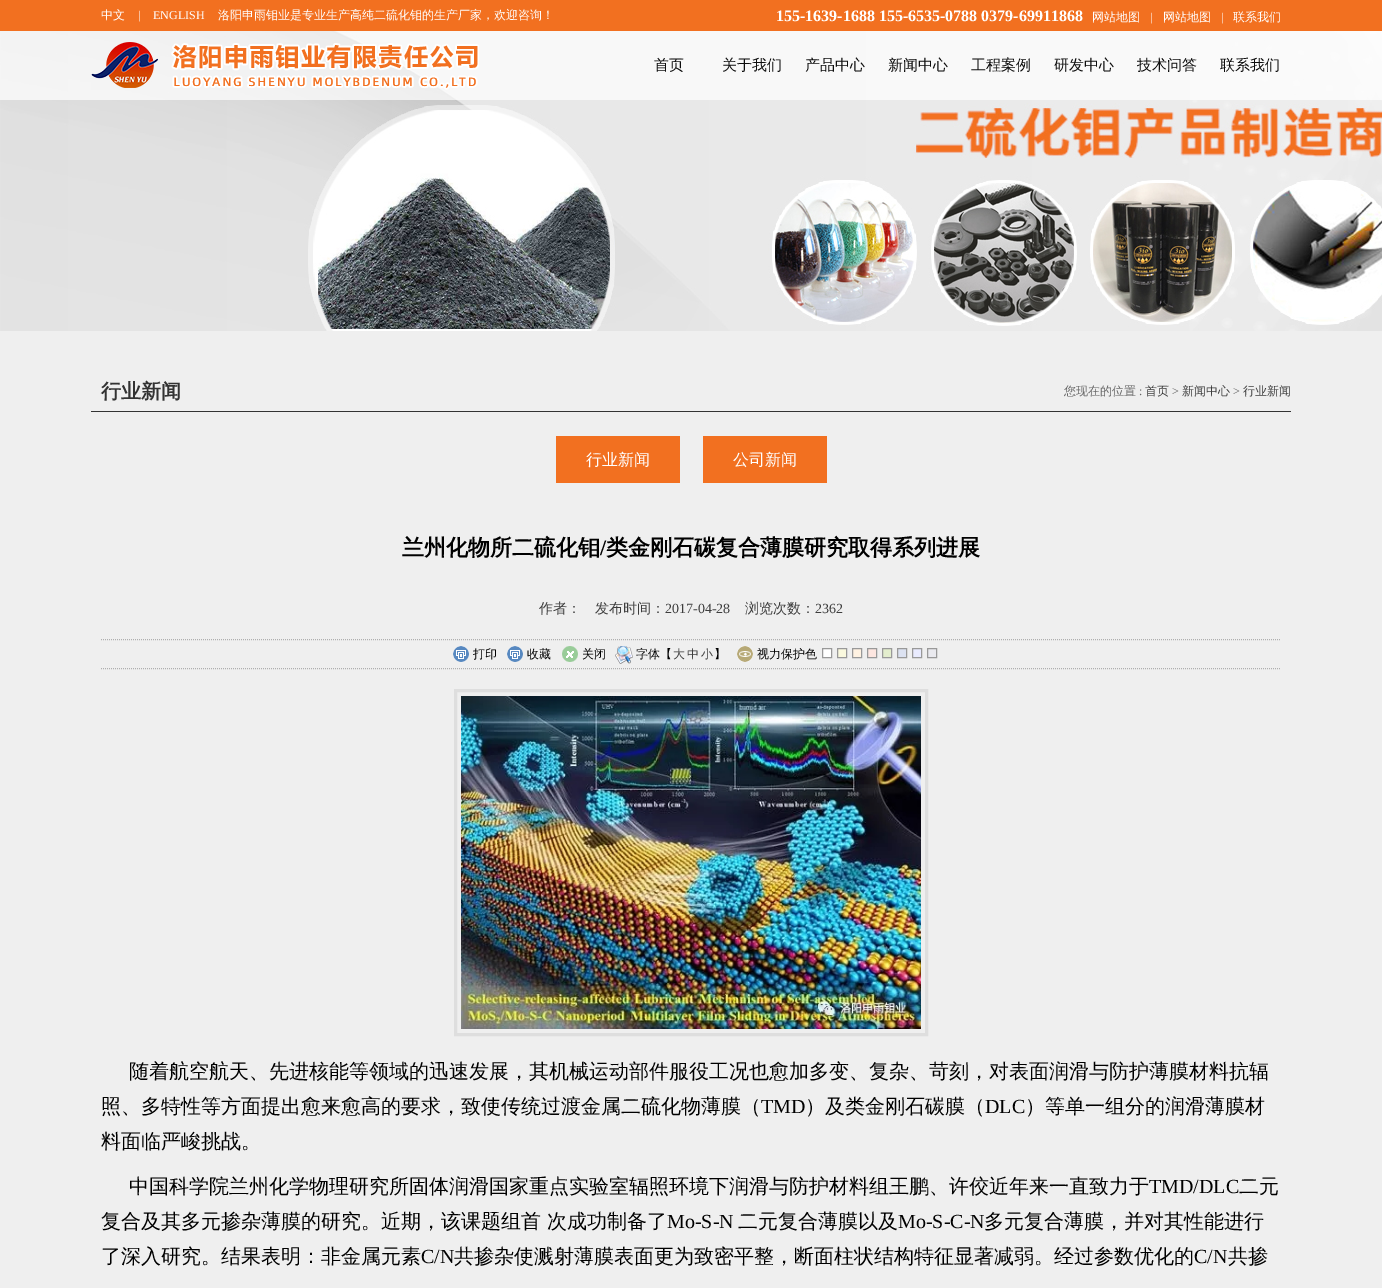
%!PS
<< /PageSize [1382 1288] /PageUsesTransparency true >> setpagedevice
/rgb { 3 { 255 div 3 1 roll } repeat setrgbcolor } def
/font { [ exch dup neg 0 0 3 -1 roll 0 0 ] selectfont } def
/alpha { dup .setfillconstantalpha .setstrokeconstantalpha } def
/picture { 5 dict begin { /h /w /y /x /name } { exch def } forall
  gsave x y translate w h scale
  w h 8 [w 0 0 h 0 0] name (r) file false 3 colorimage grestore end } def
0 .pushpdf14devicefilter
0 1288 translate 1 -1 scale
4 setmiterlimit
242 112 32 rgb
0 0 1382 1288 rectfill
(img/1.rgb) 0 31 1382 300 picture
0.7 alpha
255 255 255 rgb
0 31 1382 69 rectfill
1 alpha
(img/2.rgb) 91 42 388 48 picture
[
  [0 331 1382 957 239 239 239]
  [91 411 1200 1 51 51 51]
  [556 436 124 47 242 112 32]
  [703 436 124 47 242 112 32]
] { aload pop rgb rectfill } forall
175 175 175 rgb
[1 1] 0 setdash
101 639.5 moveto 1281 639.5 lineto stroke
101 668.5 moveto 1281 668.5 lineto stroke
(img/3.rgb) 453 646 16 16 picture
(img/3.rgb) 507 646 16 16 picture
(img/4.rgb) 562 646 16 16 picture
(img/5.rgb) 615 646 18 18 picture
(img/6.rgb) 737 646 16 16 picture
255 255 255 rgb
822.5 648.5 moveto 831.5 648.5 lineto 831.5 657.5 lineto 822.5 657.5 lineto closepath gsave fill grestore
153 153 153 rgb
[] 0 setdash
stroke
250 249 222 rgb
837.5 648.5 moveto 846.5 648.5 lineto 846.5 657.5 lineto 837.5 657.5 lineto closepath gsave fill grestore
153 153 153 rgb
stroke
255 242 226 rgb
852.5 648.5 moveto 861.5 648.5 lineto 861.5 657.5 lineto 852.5 657.5 lineto closepath gsave fill grestore
153 153 153 rgb
stroke
253 230 224 rgb
867.5 648.5 moveto 876.5 648.5 lineto 876.5 657.5 lineto 867.5 657.5 lineto closepath gsave fill grestore
153 153 153 rgb
stroke
227 237 205 rgb
882.5 648.5 moveto 891.5 648.5 lineto 891.5 657.5 lineto 882.5 657.5 lineto closepath gsave fill grestore
153 153 153 rgb
stroke
220 226 241 rgb
897.5 648.5 moveto 906.5 648.5 lineto 906.5 657.5 lineto 897.5 657.5 lineto closepath gsave fill grestore
153 153 153 rgb
stroke
233 235 254 rgb
912.5 648.5 moveto 921.5 648.5 lineto 921.5 657.5 lineto 912.5 657.5 lineto closepath gsave fill grestore
153 153 153 rgb
stroke
234 234 239 rgb
927.5 648.5 moveto 936.5 648.5 lineto 936.5 657.5 lineto 927.5 657.5 lineto closepath gsave fill grestore
153 153 153 rgb
stroke
222 222 222 rgb
3 setlinewidth
455.5 690.5 471 344 rectstroke
(img/7.rgb) 461 696 460 333 picture
/WenQuanYiZenHei-Medium 12 font
255 255 255 rgb
101 19 moveto (中文) show
/LiberationSerif-Regular 12 font
138 19 moveto (|) show
153 19 moveto (ENGLISH) show
/WenQuanYiZenHei-Medium 12 font
218 19 moveto (洛阳申雨钼业是专业生产高纯二硫化钼的生产厂家，欢迎咨询！) show
/LiberationSerif-Bold 16 font
776 21 moveto (155-1639-1688 155-6535-0788 0379-69911868) show
/WenQuanYiZenHei-Medium 12 font
1092 21 moveto (网站地图) show
/LiberationSerif-Regular 12 font
1150 21 moveto (|) show
/WenQuanYiZenHei-Medium 12 font
1163 21 moveto (网站地图) show
/LiberationSerif-Regular 12 font
1221 21 moveto (|) show
/WenQuanYiZenHei-Medium 12 font
1233 21 moveto (联系我们) show
/WenQuanYiZenHei-Medium 15 font
13 13 13 rgb
[
  [(首页) 654 70]
  [(关于我们) 722 70]
  [(产品中心) 805 70]
  [(新闻中心) 888 70]
  [(工程案例) 971 70]
  [(研发中心) 1054 70]
  [(技术问答) 1137 70]
  [(联系我们) 1220 70]
] { aload pop moveto show } forall
/WenQuanYiZenHei-Bold 20 font
51 51 51 rgb
101 398 moveto (行业新闻) show
/WenQuanYiZenHei-Medium 12 font
102 102 102 rgb
1064 395 moveto (您现在的位置) show
/LiberationSerif-Regular 12 font
1139 395 moveto (:) show
/WenQuanYiZenHei-Medium 12 font
61 61 61 rgb
1145 395 moveto (首页) show
/LiberationSerif-Regular 12 font
102 102 102 rgb
1172 395 moveto (>) show
/WenQuanYiZenHei-Medium 12 font
61 61 61 rgb
1182 395 moveto (新闻中心) show
/LiberationSerif-Regular 12 font
102 102 102 rgb
1233 395 moveto (>) show
/WenQuanYiZenHei-Medium 12 font
61 61 61 rgb
1243 395 moveto (行业新闻) show
/WenQuanYiZenHei-Medium 16 font
255 255 255 rgb
586 465 moveto (行业新闻) show
733 465 moveto (公司新闻) show
/WenQuanYiZenHei-Bold 22 font
0 0 0 rgb
402 555 moveto (兰州化物所二硫化钼) show
/LiberationSerif-Bold 22 font
600 555 moveto (/) show
/WenQuanYiZenHei-Bold 22 font
606 555 moveto (类金刚石碳复合薄膜研究取得系列进展) show
/WenQuanYiZenHei-Medium 14 font
61 61 61 rgb
539 613 moveto (作者：) show
595 613 moveto (发布时间：) show
/LiberationSerif-Regular 14 font
665 613 moveto (2017-04-28) show
/WenQuanYiZenHei-Medium 14 font
745 613 moveto (浏览次数：) show
/LiberationSerif-Regular 14 font
815 613 moveto (2362) show
/WenQuanYiZenHei-Medium 12 font
0 0 0 rgb
[
  [(打印) 473 658]
  [(收藏) 527 658]
  [(关闭) 582 658]
  [(字体【) 636 658]
] { aload pop moveto show } forall
61 61 61 rgb
[
  [(大) 673 658]
  [(中) 687 658]
  [(小) 701 658]
] { aload pop moveto show } forall
0 0 0 rgb
714 658 moveto (】) show
757 658 moveto (视力保护色) show
/WenQuanYiZenHei-Medium 20 font
129 1078 moveto (随着航空航天、先进核能等领域的迅速发展，其机械运动部件服役工况也愈加多变、复杂、苛刻，对表面润滑与防护薄膜材料抗辐) show
101 1113 moveto (照、多特性等方面提出愈来愈高的要求，致使传统过渡金属二硫化物薄膜（) show
/LiberationSerif-Regular 20 font
761 1113 moveto (TMD) show
/WenQuanYiZenHei-Medium 20 font
805 1113 moveto (）及类金刚石碳膜（) show
/LiberationSerif-Regular 20 font
985 1113 moveto (DLC) show
/WenQuanYiZenHei-Medium 20 font
[
  [(）等单一组分的润滑薄膜材) 1025 1113]
  [(料面临严峻挑战。) 101 1148]
  [(中国科学院兰州化学物理研究所固体润滑国家重点实验室辐照环境下润滑与防护材料组王鹏、许佼近年来一直致力于) 129 1193]
] { aload pop moveto show } forall
/LiberationSerif-Regular 20 font
1149 1193 moveto (TMD/DLC) show
/WenQuanYiZenHei-Medium 20 font
1239 1193 moveto (二元) show
101 1228 moveto (复合及其多元掺杂薄膜的研究。近期，该课题组首 次成功制备了) show
/LiberationSerif-Regular 20 font
667 1228 moveto (Mo-S-N) show
/WenQuanYiZenHei-Medium 20 font
738 1228 moveto (二元复合薄膜以及) show
/LiberationSerif-Regular 20 font
898 1228 moveto (Mo-S-C-N) show
/WenQuanYiZenHei-Medium 20 font
984 1228 moveto (多元复合薄膜，并对其性能进行) show
101 1263 moveto (了深入研究。结果表明：非金属元素) show
/LiberationSerif-Regular 20 font
421 1263 moveto (C/N) show
/WenQuanYiZenHei-Medium 20 font
454 1263 moveto (共掺杂使溅射薄膜表面更为致密平整，断面柱状结构特征显著减弱。经过参数优化的) show
/LiberationSerif-Regular 20 font
1194 1263 moveto (C/N) show
/WenQuanYiZenHei-Medium 20 font
1228 1263 moveto (共掺) show
.poppdf14devicefilter showpage
